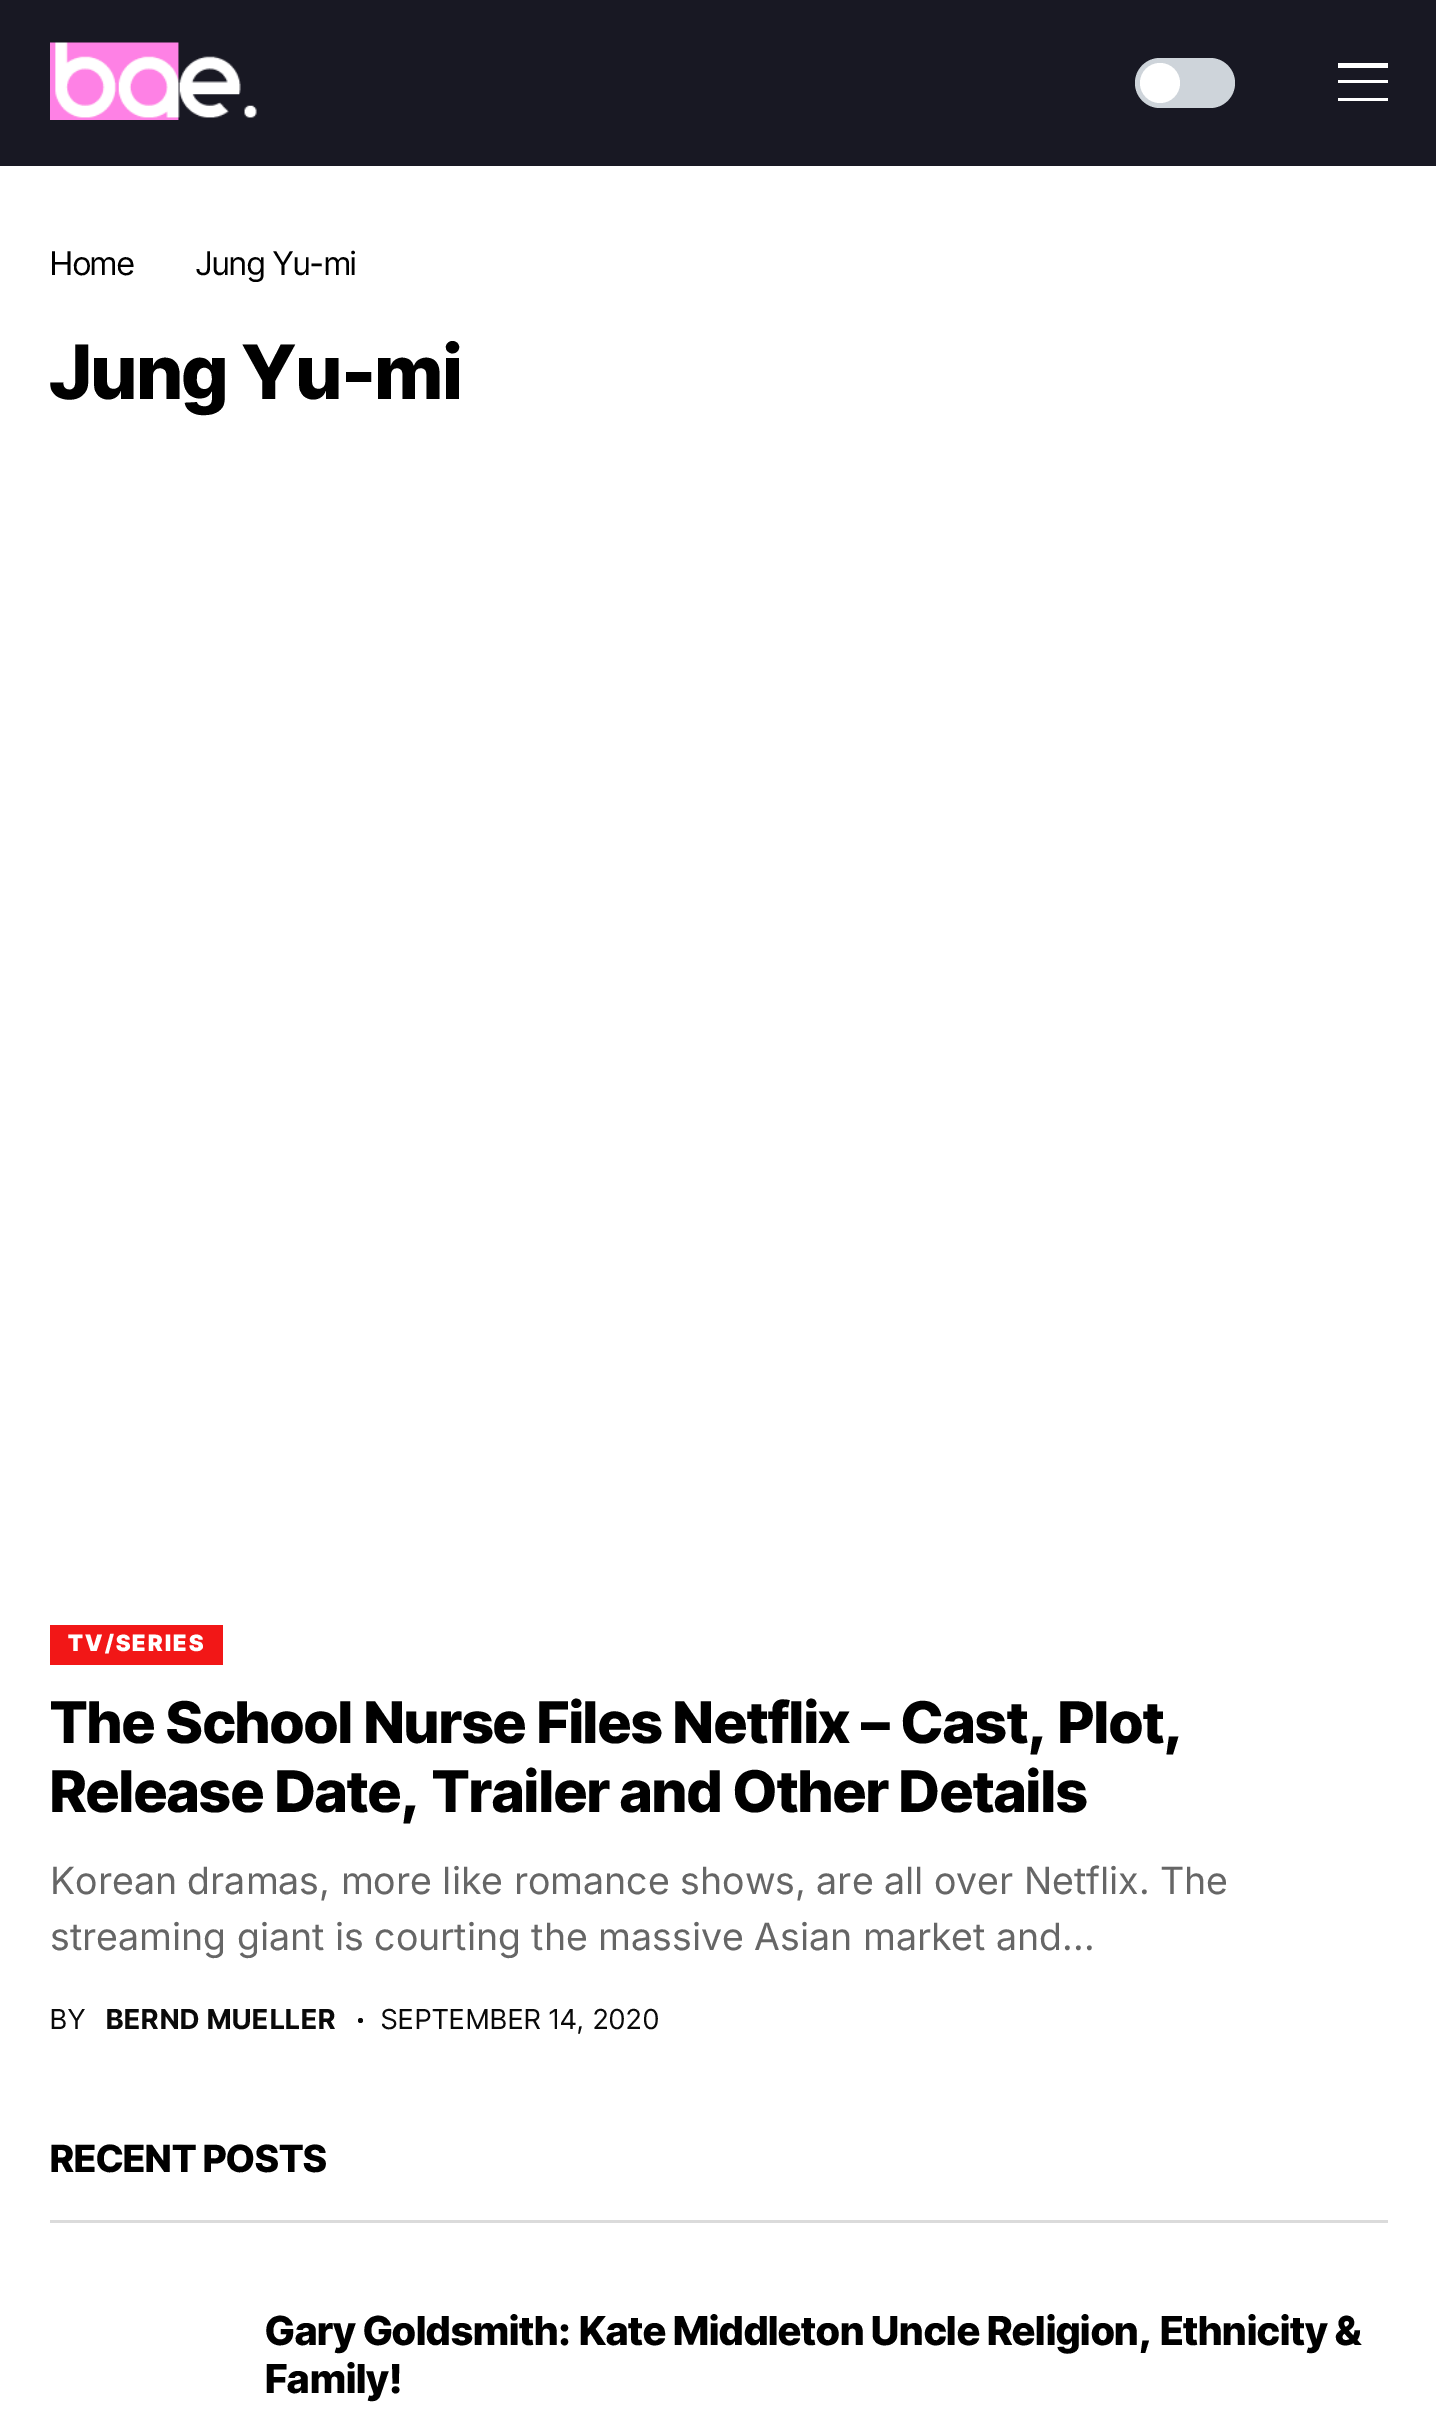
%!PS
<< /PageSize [1436 2414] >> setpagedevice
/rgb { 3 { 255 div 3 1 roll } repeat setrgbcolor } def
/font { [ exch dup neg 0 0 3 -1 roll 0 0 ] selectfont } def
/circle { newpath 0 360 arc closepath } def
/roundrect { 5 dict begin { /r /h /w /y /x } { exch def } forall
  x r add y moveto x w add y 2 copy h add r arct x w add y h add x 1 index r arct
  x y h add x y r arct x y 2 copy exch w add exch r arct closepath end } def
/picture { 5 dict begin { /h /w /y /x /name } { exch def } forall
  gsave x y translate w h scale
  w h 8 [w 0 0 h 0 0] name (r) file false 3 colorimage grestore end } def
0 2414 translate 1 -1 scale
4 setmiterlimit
255 255 255 rgb
0 0 1436 2414 rectfill
24 24 35 rgb
0 0 1436 166 rectfill
(img/1.rgb) 50 42 207 78 picture
206 212 218 rgb
1135 58 100 50 25 roundrect fill
255 255 255 rgb
1160 83 20 circle fill
[
  [1338 63 50 5 255 255 255]
  [1338 80 50 3 255 255 255]
  [1338 98 50 3 255 255 255]
  [50 1625 173 40 242 23 23]
] { aload pop rgb rectfill } forall
10 10 10 rgb
360.5 2020.5 2.5 circle fill
219 219 219 rgb
50 2220 1338 3 rectfill
/InterTight-Regular 32.5 font
0 0 0 rgb
50 275 moveto (Home) show
196 275 moveto (Jung Yu-mi) show
/InterTight-ExtraBold 75 font
50 399 moveto (Jung Yu-mi) show
/InterTight-Black 22.5 font
255 255 255 rgb
68 1651 moveto 2.25 0 (TV/SERIES) ashow
/InterTight-ExtraBold 57.5 font
0 0 0 rgb
50 1743 moveto (The School Nurse Files Netflix – Cast, Plot,) show
50 1812 moveto (Release Date, Trailer and Other Details) show
/Inter-Regular 37.5 font
102 102 102 rgb
50 1894 moveto (Korean dramas, more like romance shows, are all over Netflix. The) show
50 1950 moveto (streaming giant is courting the massive Asian market and...) show
/InterTight-Regular 27.5 font
10 10 10 rgb
50 2029 moveto 1.1 0 (BY) ashow
/InterTight-Bold 27.5 font
106 2029 moveto 1.1 0 (BERND MUELLER) ashow
/InterTight-Regular 27.5 font
381 2029 moveto 1.1 0 (SEPTEMBER 14, 2020) ashow
/InterTight-ExtraBold 37.5 font
0 0 0 rgb
50 2172 moveto (RECENT POSTS) show
/InterTight-ExtraBold 40 font
265 2345 moveto (Gary Goldsmith: Kate Middleton Uncle Religion, Ethnicity &) show
265 2393 moveto (Family!) show
showpage
